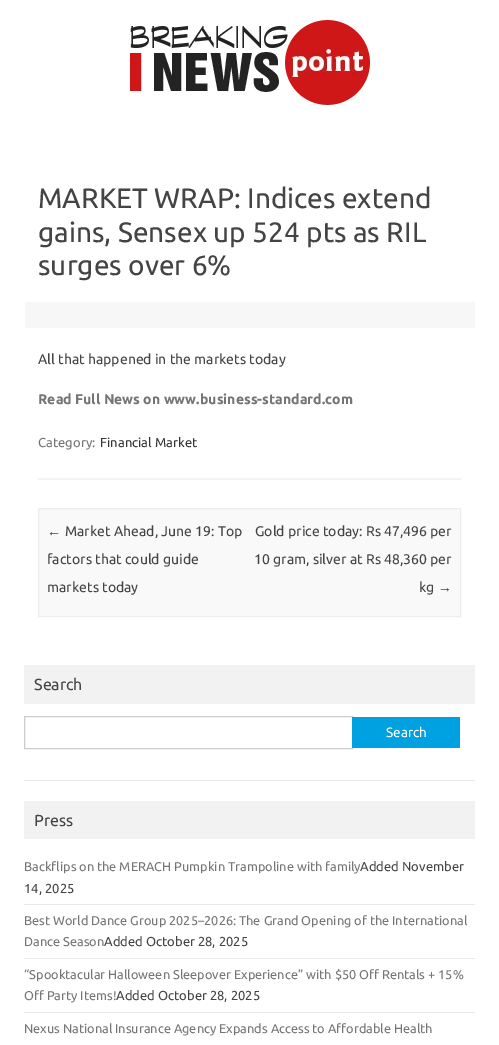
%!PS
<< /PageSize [499 1045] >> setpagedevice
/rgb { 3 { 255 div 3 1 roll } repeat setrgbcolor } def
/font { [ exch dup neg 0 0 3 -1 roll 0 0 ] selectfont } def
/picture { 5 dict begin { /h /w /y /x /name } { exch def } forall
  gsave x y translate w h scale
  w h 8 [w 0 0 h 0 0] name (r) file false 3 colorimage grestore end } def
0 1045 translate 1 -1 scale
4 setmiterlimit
255 255 255 rgb
0 0 499 1045 rectfill
(img/1.rgb) 130 20 240 85 picture
243 243 243 rgb
38 478 423 2 rectfill
247 247 247 rgb
25 302 450 26 rectfill
249 249 249 rgb
38.5 508.5 moveto 460.5 508.5 lineto 460.5 616.5 lineto 38.5 616.5 lineto closepath gsave fill grestore
237 237 237 rgb
stroke
242 242 242 rgb
24 665 451 39 rectfill
204 204 204 rgb
24.5 716.5 328 32 rectstroke
[
  [352 717 108 31 0 161 224]
  [24 780 451 1 233 233 233]
  [24 801 451 38 242 242 242]
  [24 904 451 1 233 233 233]
  [24 958 451 1 233 233 233]
  [24 1012 451 1 233 233 233]
] { aload pop rgb rectfill } forall
/Ubuntu-Regular 28 font
68 68 68 rgb
[
  [(MARKET WRAP: Indices extend) 38 208]
  [(gains, Sensex up 524 pts as RIL) 38 242]
  [(surges over 6%) 38 275]
] { aload pop moveto show } forall
/Ubuntu-Regular 14 font
38 364 moveto (All that happened in the markets today) show
/Ubuntu-Bold 14 font
117 117 117 rgb
38 404 moveto (Read Full News on www.business-standard.com) show
/Ubuntu-Regular 13 font
38 447 moveto (Category:) show
51 51 51 rgb
100 447 moveto (Financial Market) show
/LiberationSans-Regular 14 font
68 68 68 rgb
47 536 moveto (←) show
/Ubuntu-Regular 14 font
[
  [(Market Ahead, June 19: Top) 65 536]
  [(factors that could guide) 47 564]
  [(markets today) 47 592]
  [(Gold price today: Rs 47,496 per) 255 536]
  [(10 gram, silver at Rs 48,360 per) 254 564]
  [(kg) 419 592]
] { aload pop moveto show } forall
/LiberationSans-Regular 14 font
438 592 moveto (→) show
/Ubuntu-Regular 16 font
34 690 moveto (Search) show
/Ubuntu-Regular 13.5 font
255 255 255 rgb
386 737 moveto (Search) show
/Ubuntu-Regular 16 font
68 68 68 rgb
34 826 moveto (Press) show
/Ubuntu-Regular 12.75 font
117 117 117 rgb
24 871 moveto (Backflips on the MERACH Pumpkin Trampoline with family) show
/Ubuntu-Regular 13 font
68 68 68 rgb
360 871 moveto (Added November) show
24 893 moveto (14, 2025) show
/Ubuntu-Regular 12.75 font
117 117 117 rgb
24 925 moveto (Best World Dance Group 2025–2026: The Grand Opening of the International) show
24 946 moveto (Dance Season) show
/Ubuntu-Regular 13 font
68 68 68 rgb
104 946 moveto (Added October 28, 2025) show
/Ubuntu-Regular 12.75 font
117 117 117 rgb
24 979 moveto (“Spooktacular Halloween Sleepover Experience” with $50 Off Rentals + 15%) show
24 1000 moveto (Off Party Items!) show
/Ubuntu-Regular 13 font
68 68 68 rgb
116 1000 moveto (Added October 28, 2025) show
/Ubuntu-Regular 12.75 font
117 117 117 rgb
24 1033 moveto (Nexus National Insurance Agency Expands Access to Affordable Health) show
showpage
